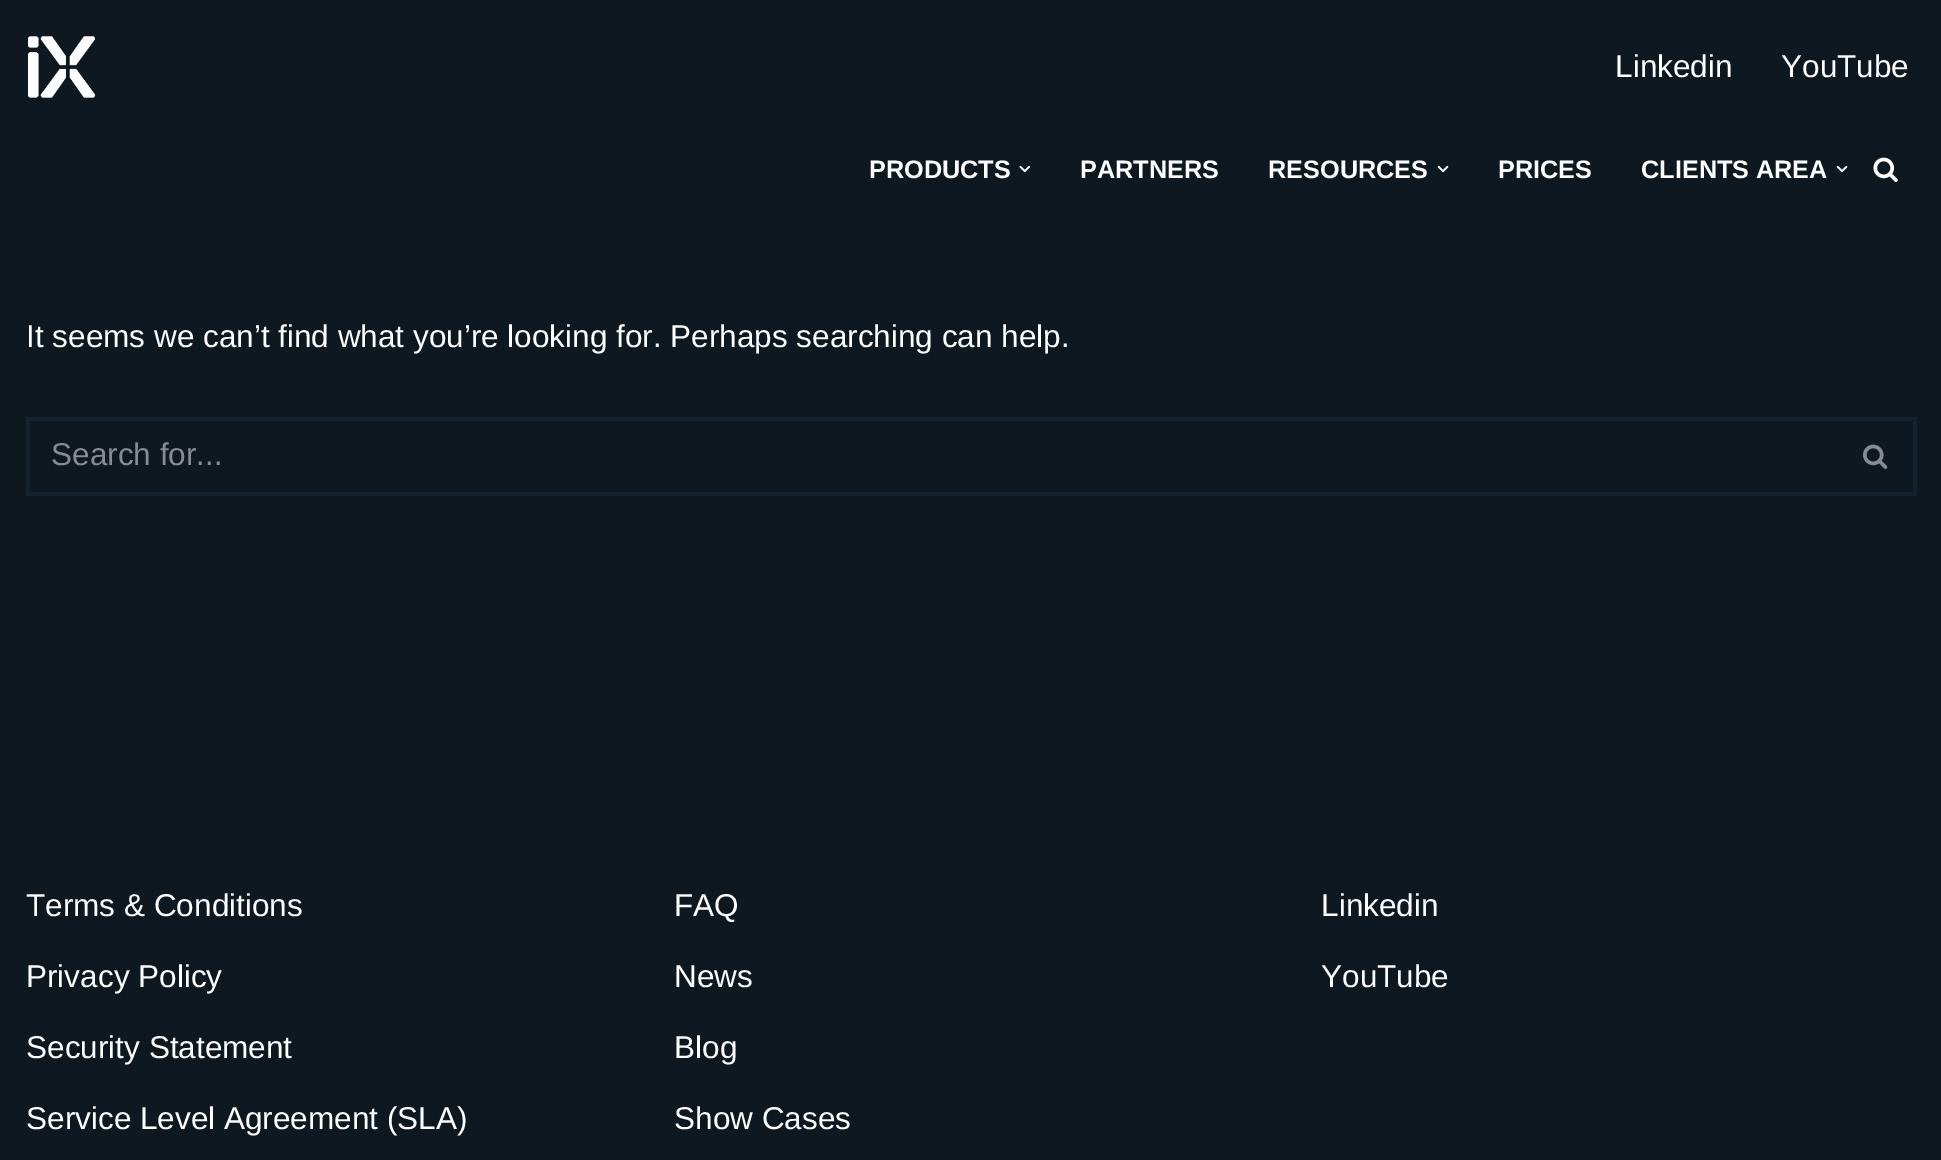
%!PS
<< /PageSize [1941 1160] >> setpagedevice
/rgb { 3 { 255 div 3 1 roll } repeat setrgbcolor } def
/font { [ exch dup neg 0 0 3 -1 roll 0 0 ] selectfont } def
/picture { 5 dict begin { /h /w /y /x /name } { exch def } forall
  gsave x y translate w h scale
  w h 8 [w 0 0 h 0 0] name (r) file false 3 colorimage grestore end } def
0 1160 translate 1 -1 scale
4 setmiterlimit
13 24 33 rgb
0 0 1941 1160 rectfill
(img/1.rgb) 28 36 68 62 picture
(img/2.rgb) 1019 165 12 8 picture
(img/3.rgb) 1437 165 12 8 picture
(img/3.rgb) 1836 165 12 8 picture
(img/4.rgb) 1873 157 25 25 picture
[
  [26 417 1890 4 20 35 47]
  [26 492 1812 4 20 35 47]
  [26 417 4 78 20 35 47]
  [1913 417 4 78 20 35 47]
  [1838 492 78 4 20 35 47]
] { aload pop rgb rectfill } forall
(img/5.rgb) 1863 444 25 25 picture
/LiberationSans-Regular 31.5 font
255 255 255 rgb
1615 77 moveto (Linkedin) show
1781 77 moveto (YouTube) show
/LiberationSans-Bold 25.25 font
[
  [(PRODUCTS) 869 178]
  [(PARTNERS) 1080 178]
  [(RESOURCES) 1268 178]
  [(PRICES) 1498 178]
  [(CLIENTS AREA) 1641 178]
] { aload pop moveto show } forall
/LiberationSans-Regular 31.5 font
26 347 moveto (It seems we can’t find what you’re looking for. Perhaps searching can help.) show
134 140 144 rgb
51 465 moveto (Search for...) show
255 255 255 rgb
[
  [(Terms & Conditions) 26 916]
  [(Privacy Policy) 26 987]
  [(Security Statement) 26 1058]
  [(Service Level Agreement \(SLA\)) 26 1129]
  [(FAQ) 674 916]
  [(News) 674 987]
  [(Blog) 674 1058]
  [(Show Cases) 674 1129]
  [(Linkedin) 1321 916]
  [(YouTube) 1321 987]
] { aload pop moveto show } forall
showpage
